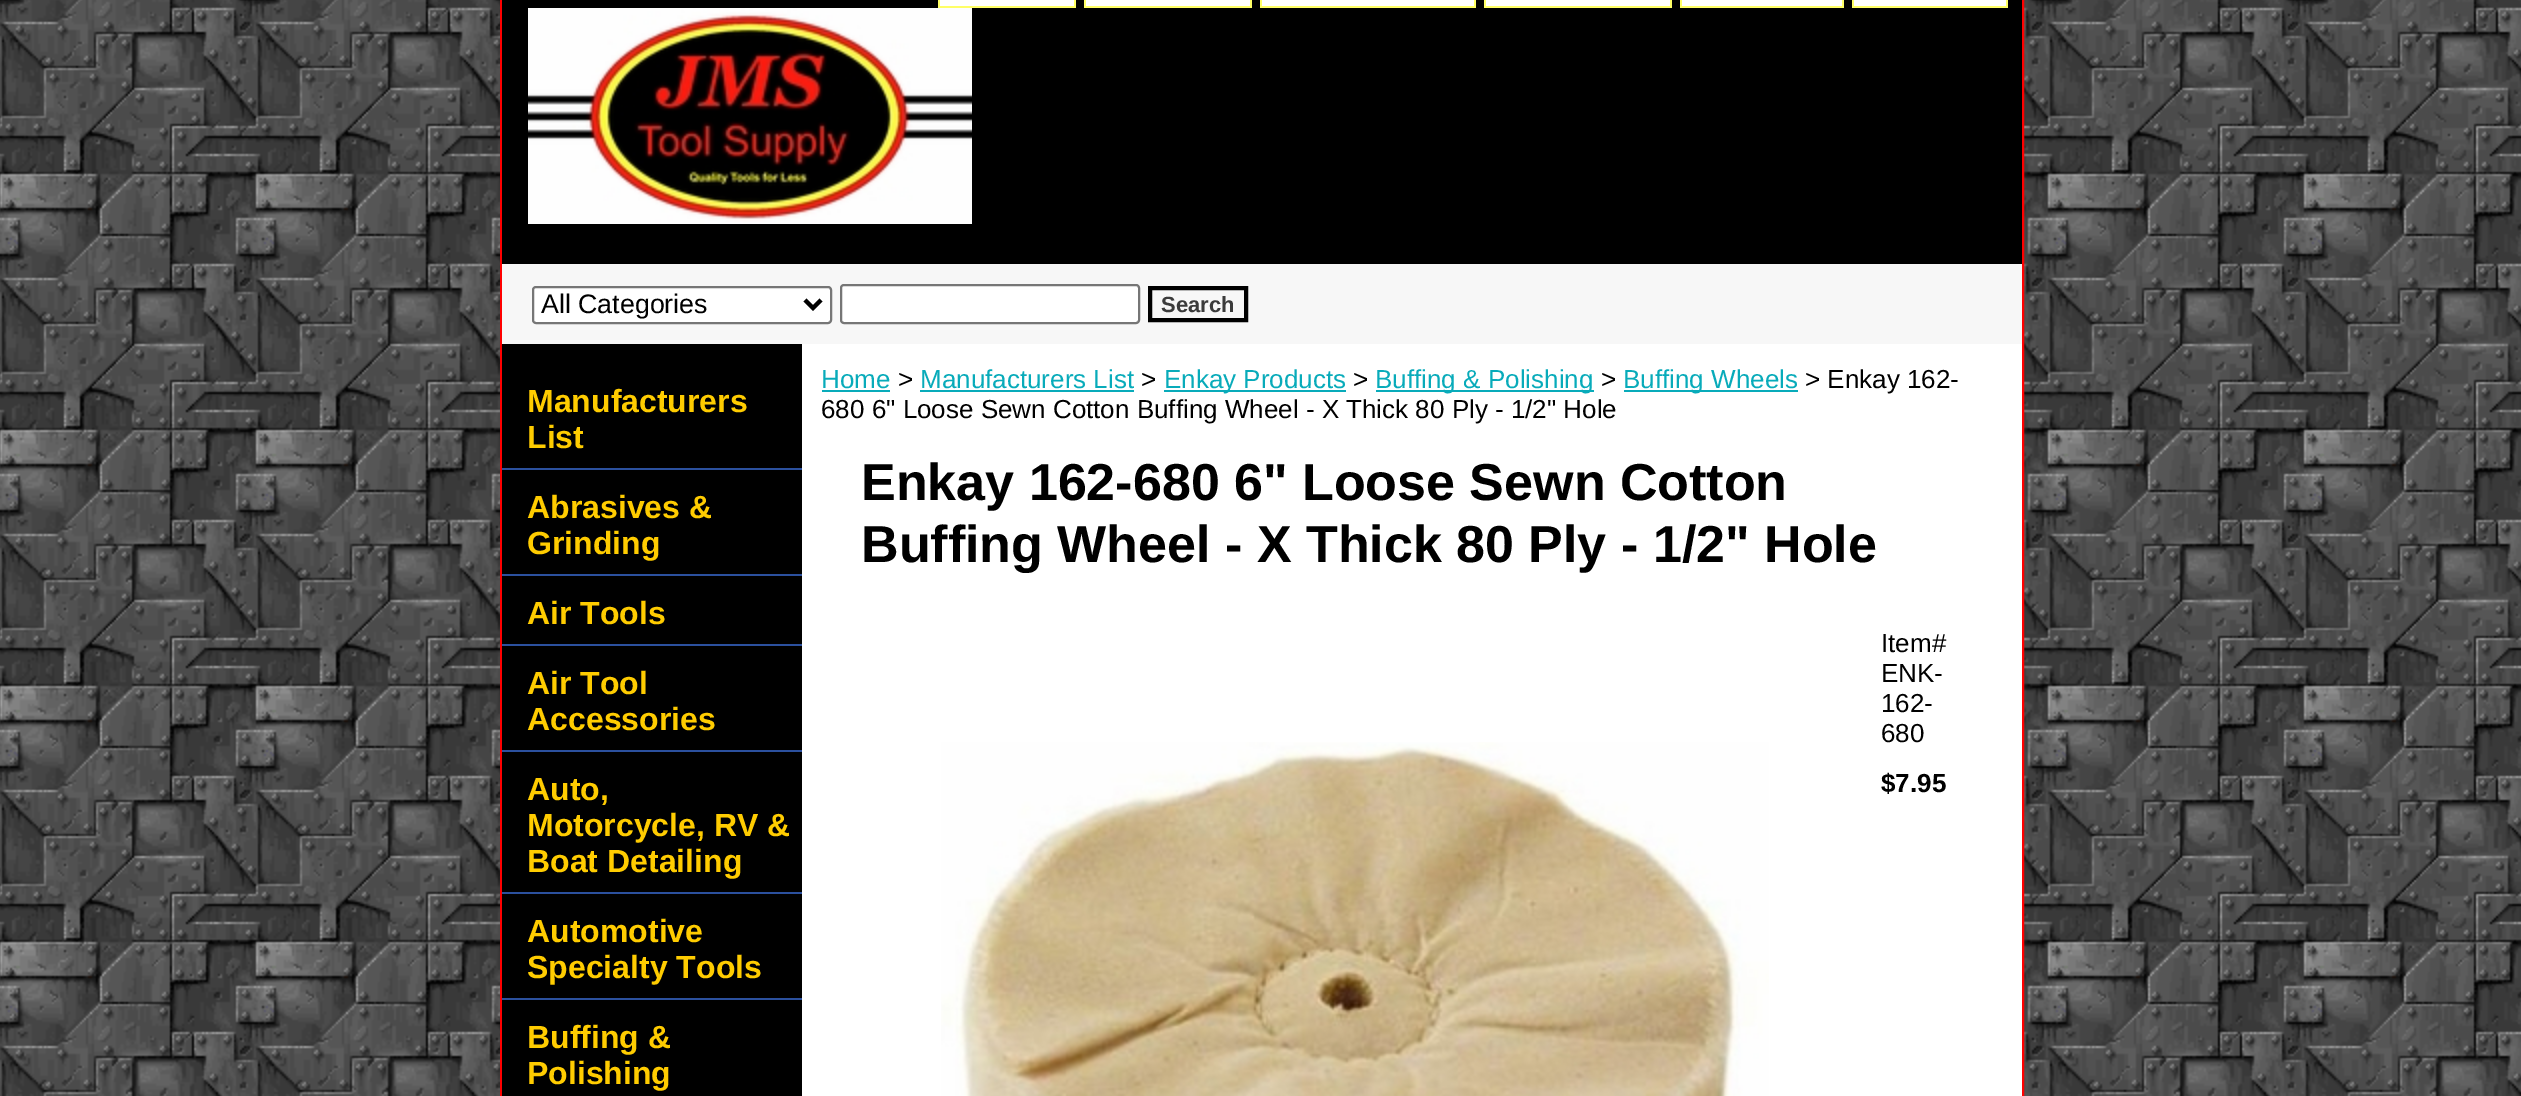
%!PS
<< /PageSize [2521 1096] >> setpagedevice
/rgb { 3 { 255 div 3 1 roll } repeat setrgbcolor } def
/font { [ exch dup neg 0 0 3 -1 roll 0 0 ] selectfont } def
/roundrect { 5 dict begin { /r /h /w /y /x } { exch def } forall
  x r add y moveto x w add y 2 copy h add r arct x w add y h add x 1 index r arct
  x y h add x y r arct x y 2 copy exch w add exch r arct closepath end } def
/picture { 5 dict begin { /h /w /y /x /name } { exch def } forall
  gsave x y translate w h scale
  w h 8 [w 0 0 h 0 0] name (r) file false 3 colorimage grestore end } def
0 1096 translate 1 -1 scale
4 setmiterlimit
255 255 255 rgb
0 0 2521 1096 rectfill
(img/1.rgb) 0 0 2521 1096 picture
802 344 1220 752 rectfill
255 0 0 rgb
2 setlinewidth
501 -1 1522 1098 rectstroke
[
  [502 0 1520 264 0 0 0]
  [938 0 138 6 255 255 255]
  [1074 0 2 8 255 255 102]
  [938 6 138 2 255 255 102]
  [938 0 2 8 255 255 102]
  [1084 0 168 6 255 255 255]
  [1250 0 2 8 255 255 102]
  [1084 6 168 2 255 255 102]
  [1084 0 2 8 255 255 102]
  [1260 0 216 6 255 255 255]
  [1474 0 2 8 255 255 102]
  [1260 6 216 2 255 255 102]
  [1260 0 2 8 255 255 102]
  [1484 0 188 6 255 255 255]
  [1670 0 2 8 255 255 102]
  [1484 6 188 2 255 255 102]
  [1484 0 2 8 255 255 102]
  [1680 0 164 6 255 255 255]
  [1842 0 2 8 255 255 102]
  [1680 6 164 2 255 255 102]
  [1680 0 2 8 255 255 102]
  [1852 0 156 6 255 255 255]
  [2006 0 2 8 255 255 102]
  [1852 6 156 2 255 255 102]
  [1852 0 2 8 255 255 102]
] { aload pop rgb rectfill } forall
(img/2.rgb) 528 8 444 216 picture
247 247 247 rgb
502 264 1520 80 rectfill
255 255 255 rgb
533 287 298 36 3 roundrect gsave fill grestore
118 118 118 rgb
stroke
0 0 0 rgb
4 setlinewidth
805 300 moveto 813 308 lineto 821 300 lineto stroke
255 255 255 rgb
841 285 298 38 3 roundrect gsave fill grestore
118 118 118 rgb
2 setlinewidth
stroke
0 0 0 rgb
4 setlinewidth
1150 288 96 32 rectstroke
[
  [502 344 300 752 0 0 0]
  [502 468 300 2 43 80 158]
  [502 574 300 2 43 80 158]
  [502 644 300 2 43 80 158]
  [502 750 300 2 43 80 158]
  [502 892 300 2 43 80 158]
  [502 998 300 2 43 80 158]
  [822 390 68 2 8 171 186]
  [920 390 214 2 8 171 186]
  [1164 390 182 2 8 171 186]
  [1376 390 218 2 8 171 186]
  [1624 390 174 2 8 171 186]
] { aload pop rgb rectfill } forall
(img/3.rgb) 941 742 828 354 picture
/LiberationSans-Regular 26.75 font
0 0 0 rgb
541 313 moveto (All Categories) show
/LiberationSans-Bold 22 font
59 59 59 rgb
1161 312 moveto (Search) show
/LiberationSans-Bold 32 font
255 204 0 rgb
[
  [(Manufacturers) 527 412]
  [(List) 527 448]
  [(Abrasives &) 527 518]
  [(Grinding) 527 554]
  [(Air Tools) 527 624]
  [(Air Tool) 527 694]
  [(Accessories) 527 730]
  [(Auto,) 527 800]
  [(Motorcycle, RV &) 527 836]
  [(Boat Detailing) 527 872]
  [(Automotive) 527 942]
  [(Specialty Tools) 527 978]
  [(Buffing &) 527 1048]
  [(Polishing) 527 1084]
] { aload pop moveto show } forall
/LiberationSans-Regular 26 font
8 171 186 rgb
821 388 moveto (Home) show
0 0 0 rgb
898 388 moveto (>) show
8 171 186 rgb
920 388 moveto (Manufacturers List) show
0 0 0 rgb
1141 388 moveto (>) show
8 171 186 rgb
1164 388 moveto (Enkay Products) show
0 0 0 rgb
1353 388 moveto (>) show
8 171 186 rgb
1375 388 moveto (Buffing & Polishing) show
0 0 0 rgb
1601 388 moveto (>) show
8 171 186 rgb
1623 388 moveto (Buffing Wheels) show
0 0 0 rgb
1805 388 moveto (> Enkay 162-) show
821 418 moveto (680 6" Loose Sewn Cotton Buffing Wheel - X Thick 80 Ply - 1/2" Hole) show
/LiberationSans-Bold 52 font
861 500 moveto (Enkay 162-680 6" Loose Sewn Cotton) show
861 562 moveto (Buffing Wheel - X Thick 80 Ply - 1/2" Hole) show
/LiberationSans-Regular 26 font
[
  [(Item#) 1881 652]
  [(ENK-) 1881 682]
  [(162-) 1881 712]
  [(680) 1881 742]
] { aload pop moveto show } forall
/LiberationSans-Bold 26 font
1881 792 moveto ($7.95) show
showpage
